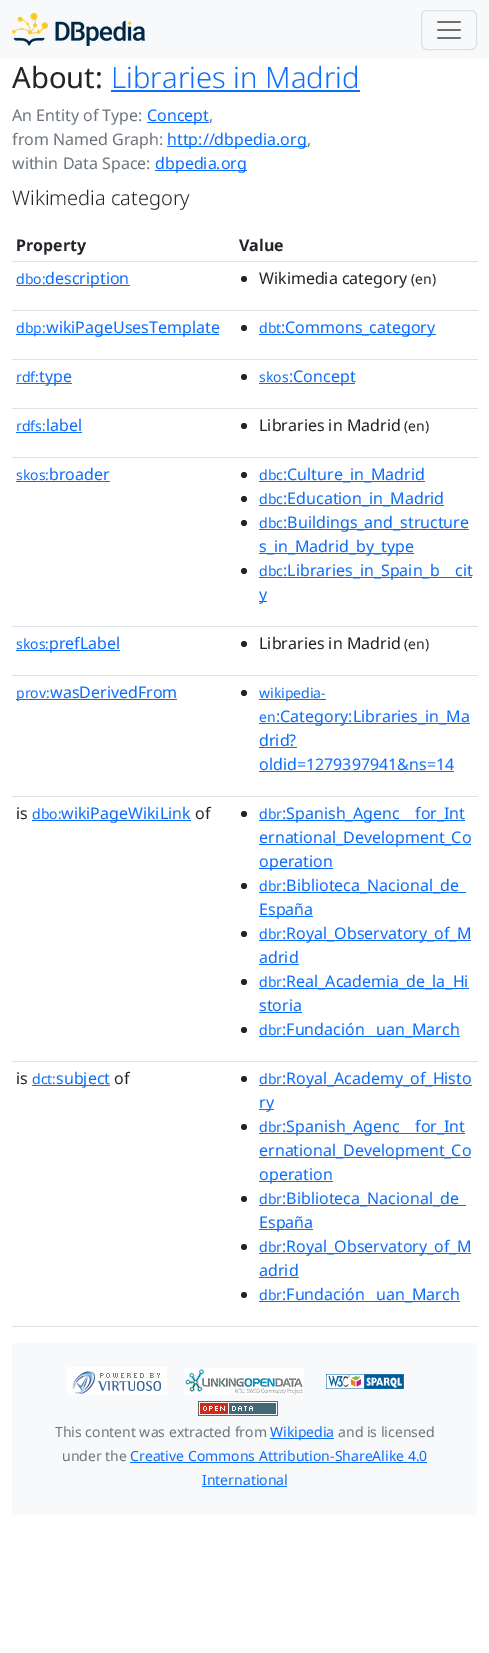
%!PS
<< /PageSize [489 1653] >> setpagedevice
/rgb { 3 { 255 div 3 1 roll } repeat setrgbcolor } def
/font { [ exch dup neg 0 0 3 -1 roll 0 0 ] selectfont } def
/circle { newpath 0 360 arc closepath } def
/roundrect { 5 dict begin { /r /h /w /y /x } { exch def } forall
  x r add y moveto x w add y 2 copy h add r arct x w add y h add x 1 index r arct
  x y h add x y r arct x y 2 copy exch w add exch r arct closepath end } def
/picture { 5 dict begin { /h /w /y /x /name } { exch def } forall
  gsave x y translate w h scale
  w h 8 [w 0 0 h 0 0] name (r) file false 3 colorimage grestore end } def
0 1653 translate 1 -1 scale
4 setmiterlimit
255 255 255 rgb
0 0 489 1653 rectfill
248 249 250 rgb
0 0 489 59 rectfill
(img/1.rgb) 12 13 133 33 picture
223 224 225 rgb
421.5 10.5 55 39 5.5 roundrect stroke
(img/2.rgb) 437 21 24 18 picture
[
  [111 90 249 2 13 110 253]
  [147 122 62 1 13 110 253]
  [167 146 140 1 13 110 253]
  [155 170 92 1 13 110 253]
  [12 261 466 1 222 226 230]
  [16 285 114 1 13 110 253]
  [12 310 466 1 222 226 230]
] { aload pop rgb rectfill } forall
33 37 41 rgb
244 279 3 circle fill
13 110 253 rgb
16 334 203 1 rectfill
222 226 230 rgb
12 359 466 1 rectfill
33 37 41 rgb
244 328 3 circle fill
[
  [259 334 177 1 13 110 253]
  [16 383 56 1 13 110 253]
  [12 408 466 1 222 226 230]
] { aload pop rgb rectfill } forall
33 37 41 rgb
244 377 3 circle fill
[
  [259 383 96 1 13 110 253]
  [16 432 66 1 13 110 253]
  [12 457 466 1 222 226 230]
] { aload pop rgb rectfill } forall
33 37 41 rgb
244 426 3 circle fill
13 110 253 rgb
16 481 94 1 rectfill
222 226 230 rgb
12 626 466 1 rectfill
33 37 41 rgb
244 475 3 circle fill
13 110 253 rgb
259 481 166 1 rectfill
33 37 41 rgb
244 499 3 circle fill
13 110 253 rgb
259 505 185 1 rectfill
33 37 41 rgb
244 523 3 circle fill
13 110 253 rgb
259 529 210 1 rectfill
259 553 155 1 rectfill
33 37 41 rgb
244 571 3 circle fill
[
  [259 577 213 1 13 110 253]
  [259 601 8 1 13 110 253]
  [16 650 104 1 13 110 253]
  [12 675 466 1 222 226 230]
] { aload pop rgb rectfill } forall
33 37 41 rgb
244 644 3 circle fill
13 110 253 rgb
16 699 161 1 rectfill
222 226 230 rgb
12 796 466 1 rectfill
33 37 41 rgb
244 693 3 circle fill
[
  [259 699 67 1 13 110 253]
  [259 723 211 1 13 110 253]
  [259 747 38 1 13 110 253]
  [259 771 195 1 13 110 253]
  [32 820 159 1 13 110 253]
  [12 1061 466 1 222 226 230]
] { aload pop rgb rectfill } forall
33 37 41 rgb
244 814 3 circle fill
[
  [259 820 206 1 13 110 253]
  [259 844 212 1 13 110 253]
  [259 868 74 1 13 110 253]
] { aload pop rgb rectfill } forall
33 37 41 rgb
244 886 3 circle fill
13 110 253 rgb
259 892 207 1 rectfill
259 916 54 1 rectfill
33 37 41 rgb
244 934 3 circle fill
13 110 253 rgb
259 940 212 1 rectfill
259 964 40 1 rectfill
33 37 41 rgb
244 982 3 circle fill
13 110 253 rgb
259 988 210 1 rectfill
259 1012 43 1 rectfill
33 37 41 rgb
244 1030 3 circle fill
[
  [259 1036 201 1 13 110 253]
  [32 1085 78 1 13 110 253]
  [12 1326 466 1 222 226 230]
] { aload pop rgb rectfill } forall
33 37 41 rgb
244 1079 3 circle fill
13 110 253 rgb
259 1085 213 1 rectfill
259 1109 15 1 rectfill
33 37 41 rgb
244 1127 3 circle fill
[
  [259 1133 206 1 13 110 253]
  [259 1157 212 1 13 110 253]
  [259 1181 74 1 13 110 253]
] { aload pop rgb rectfill } forall
33 37 41 rgb
244 1199 3 circle fill
13 110 253 rgb
259 1205 207 1 rectfill
259 1229 54 1 rectfill
33 37 41 rgb
244 1247 3 circle fill
13 110 253 rgb
259 1253 212 1 rectfill
259 1277 40 1 rectfill
33 37 41 rgb
244 1295 3 circle fill
13 110 253 rgb
259 1301 201 1 rectfill
248 249 250 rgb
12 1343 465 172 rectfill
(img/3.rgb) 67 1367 100 28 picture
(img/4.rgb) 184 1368 120 27 picture
(img/5.rgb) 325 1374 80 15 picture
(img/6.rgb) 198 1401 80 15 picture
[
  [270 1438 64 1 13 110 253]
  [130 1462 297 1 13 110 253]
  [202 1486 85 1 13 110 253]
] { aload pop rgb rectfill } forall
/NotoSans-Regular 29.25 font
33 37 41 rgb
12 88 moveto (About:) show
/NotoSans-Light 29.25 font
13 110 253 rgb
111 88 moveto (Libraries in Madrid) show
/NotoSans-Regular 16 font
108 117 125 rgb
12 121 moveto (An Entity of Type:) show
13 110 253 rgb
147 121 moveto (Concept) show
108 117 125 rgb
209 121 moveto (,) show
12 145 moveto (from Named Graph:) show
13 110 253 rgb
167 145 moveto (http://dbpedia.org) show
108 117 125 rgb
307 145 moveto (,) show
12 169 moveto (within Data Space:) show
13 110 253 rgb
155 169 moveto (dbpedia.org) show
/NotoSans-Light 20 font
33 37 41 rgb
12 205 moveto (Wikimedia category) show
/NotoSans-Bold 16 font
16 251 moveto (Property) show
239 251 moveto (Value) show
/NotoSans-Regular 14 font
13 110 253 rgb
16 284 moveto (dbo:) show
/NotoSans-Regular 16 font
45 284 moveto (description) show
33 37 41 rgb
259 284 moveto (Wikimedia category) show
/NotoSans-Regular 14 font
411 284 moveto (\(en\)) show
13 110 253 rgb
16 333 moveto (dbp:) show
/NotoSans-Regular 16 font
46 333 moveto (wikiPageUsesTemplate) show
/NotoSans-Regular 14 font
259 333 moveto (dbt) show
/NotoSans-Regular 16 font
281 333 moveto (:Commons_category) show
/NotoSans-Regular 14 font
16 382 moveto (rdf:) show
/NotoSans-Regular 16 font
39 382 moveto (type) show
/NotoSans-Regular 14 font
259 382 moveto (skos) show
/NotoSans-Regular 16 font
289 382 moveto (:Concept) show
/NotoSans-Regular 14 font
16 431 moveto (rdfs:) show
/NotoSans-Regular 16 font
46 431 moveto (label) show
33 37 41 rgb
259 431 moveto (Libraries in Madrid) show
/NotoSans-Regular 14 font
404 431 moveto (\(en\)) show
13 110 253 rgb
16 480 moveto (skos:) show
/NotoSans-Regular 16 font
49 480 moveto (broader) show
/NotoSans-Regular 14 font
259 480 moveto (dbc) show
/NotoSans-Regular 16 font
283 480 moveto (:Culture_in_Madrid) show
/NotoSans-Regular 14 font
259 504 moveto (dbc) show
/NotoSans-Regular 16 font
283 504 moveto (:Education_in_Madrid) show
/NotoSans-Regular 14 font
259 528 moveto (dbc) show
/NotoSans-Regular 16 font
283 528 moveto (:Buildings_and_structure) show
259 552 moveto (s_in_Madrid_by_type) show
/NotoSans-Regular 14 font
259 576 moveto (dbc) show
/NotoSans-Regular 16 font
[
  [(:Libraries_in_Spain_b) 283 576]
  [(cit) 455 576]
  [(y) 259 600]
] { aload pop moveto show } forall
/NotoSans-Regular 14 font
16 649 moveto (skos:) show
/NotoSans-Regular 16 font
49 649 moveto (prefLabel) show
33 37 41 rgb
259 649 moveto (Libraries in Madrid) show
/NotoSans-Regular 14 font
404 649 moveto (\(en\)) show
13 110 253 rgb
16 698 moveto (prov:) show
/NotoSans-Regular 16 font
50 698 moveto (wasDerivedFrom) show
/NotoSans-Regular 14 font
259 698 moveto (wikipedia-) show
259 722 moveto (en) show
/NotoSans-Regular 16 font
[
  [(:Category:Libraries_in_Ma) 276 722]
  [(drid?) 259 746]
  [(oldid=1279397941&ns=14) 259 770]
] { aload pop moveto show } forall
33 37 41 rgb
16 819 moveto (is) show
/NotoSans-Regular 14 font
13 110 253 rgb
32 819 moveto (dbo:) show
/NotoSans-Regular 16 font
61 819 moveto (wikiPageWikiLink) show
33 37 41 rgb
195 819 moveto (of) show
/NotoSans-Regular 14 font
13 110 253 rgb
259 819 moveto (dbr) show
/NotoSans-Regular 16 font
[
  [(:Spanish_Agenc) 282 819]
  [(for_Int) 415 819]
  [(ernational_Development_Co) 259 843]
  [(operation) 259 867]
] { aload pop moveto show } forall
/NotoSans-Regular 14 font
259 891 moveto (dbr) show
/NotoSans-Regular 16 font
282 891 moveto (:Biblioteca_Nacional_de) show
259 915 moveto (España) show
/NotoSans-Regular 14 font
259 939 moveto (dbr) show
/NotoSans-Regular 16 font
282 939 moveto (:Royal_Observatory_of_M) show
259 963 moveto (adrid) show
/NotoSans-Regular 14 font
259 987 moveto (dbr) show
/NotoSans-Regular 16 font
282 987 moveto (:Real_Academia_de_la_Hi) show
259 1011 moveto (storia) show
/NotoSans-Regular 14 font
259 1035 moveto (dbr) show
/NotoSans-Regular 16 font
282 1035 moveto (:Fundación) show
376 1035 moveto (uan_March) show
33 37 41 rgb
16 1084 moveto (is) show
/NotoSans-Regular 14 font
13 110 253 rgb
32 1084 moveto (dct:) show
/NotoSans-Regular 16 font
56 1084 moveto (subject) show
33 37 41 rgb
114 1084 moveto (of) show
/NotoSans-Regular 14 font
13 110 253 rgb
259 1084 moveto (dbr) show
/NotoSans-Regular 16 font
282 1084 moveto (:Royal_Academy_of_Histo) show
259 1108 moveto (ry) show
/NotoSans-Regular 14 font
259 1132 moveto (dbr) show
/NotoSans-Regular 16 font
[
  [(:Spanish_Agenc) 282 1132]
  [(for_Int) 415 1132]
  [(ernational_Development_Co) 259 1156]
  [(operation) 259 1180]
] { aload pop moveto show } forall
/NotoSans-Regular 14 font
259 1204 moveto (dbr) show
/NotoSans-Regular 16 font
282 1204 moveto (:Biblioteca_Nacional_de) show
259 1228 moveto (España) show
/NotoSans-Regular 14 font
259 1252 moveto (dbr) show
/NotoSans-Regular 16 font
282 1252 moveto (:Royal_Observatory_of_M) show
259 1276 moveto (adrid) show
/NotoSans-Regular 14 font
259 1300 moveto (dbr) show
/NotoSans-Regular 16 font
282 1300 moveto (:Fundación) show
376 1300 moveto (uan_March) show
/NotoSans-Regular 14 font
108 117 125 rgb
55 1437 moveto (This content was extracted from) show
13 110 253 rgb
270 1437 moveto (Wikipedia) show
108 117 125 rgb
338 1437 moveto (and is licensed) show
62 1461 moveto (under the) show
13 110 253 rgb
130 1461 moveto (Creative Commons Attribution-ShareAlike 4.0) show
202 1485 moveto (International) show
showpage
